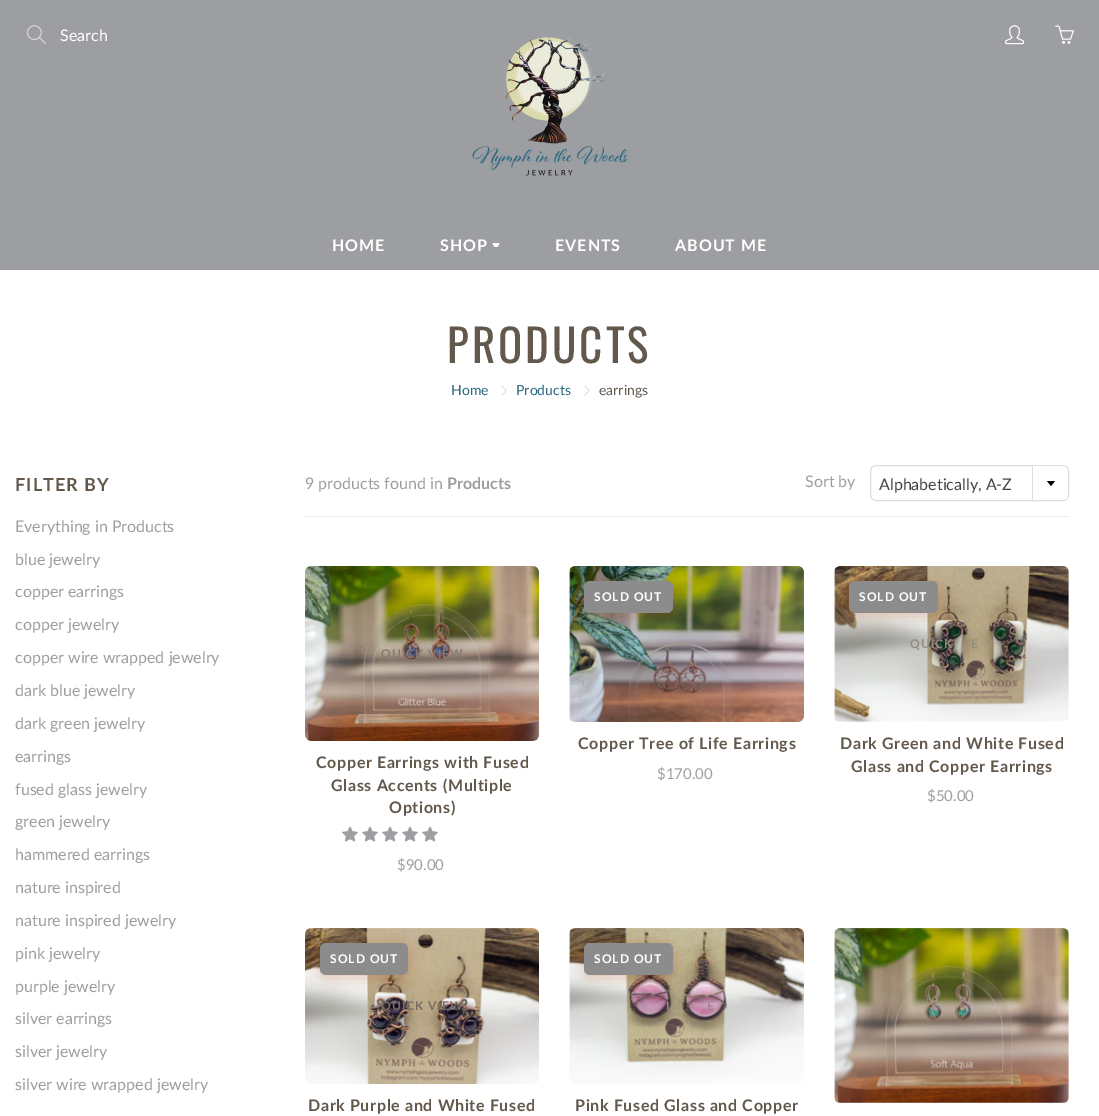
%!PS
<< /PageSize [1099 1116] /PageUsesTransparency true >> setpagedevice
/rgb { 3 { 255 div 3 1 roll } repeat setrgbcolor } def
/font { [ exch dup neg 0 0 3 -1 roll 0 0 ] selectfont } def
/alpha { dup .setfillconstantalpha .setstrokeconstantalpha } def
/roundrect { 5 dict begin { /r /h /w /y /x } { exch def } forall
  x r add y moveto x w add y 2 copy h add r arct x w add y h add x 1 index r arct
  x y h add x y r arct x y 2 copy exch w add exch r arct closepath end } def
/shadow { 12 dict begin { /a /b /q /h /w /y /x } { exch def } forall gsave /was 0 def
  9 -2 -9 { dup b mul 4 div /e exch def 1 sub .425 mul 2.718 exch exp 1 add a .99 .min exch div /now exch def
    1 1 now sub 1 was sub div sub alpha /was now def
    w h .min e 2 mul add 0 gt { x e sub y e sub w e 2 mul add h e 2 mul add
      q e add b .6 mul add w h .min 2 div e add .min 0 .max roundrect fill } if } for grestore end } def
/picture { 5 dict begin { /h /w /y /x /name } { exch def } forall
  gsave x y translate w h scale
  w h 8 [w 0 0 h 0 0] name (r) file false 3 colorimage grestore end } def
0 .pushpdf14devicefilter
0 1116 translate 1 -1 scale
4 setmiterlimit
255 255 255 rgb
0 0 1099 1116 rectfill
157 158 161 rgb
0 0 1099 270 rectfill
(img/1.rgb) 27 25 19 20 picture
(img/2.rgb) 472 35 157 141 picture
(img/3.rgb) 1005 25 19 20 picture
(img/4.rgb) 1055 25 19 19 picture
255 255 255 rgb
493 243 moveto 492.5 243.5 lineto 494.5 247 lineto 497.5 247 lineto 499.5 243.5 lineto 498 243 lineto closepath fill
(img/5.rgb) 501 385 6 11 picture
(img/5.rgb) 584 385 6 11 picture
237 237 237 rgb
305 516 764 1 rectfill
221 221 221 rgb
870.5 465.5 198 35 5.5 roundrect stroke
255 255 255 rgb
1032 466 moveto 1062 466 lineto 1065.5 466 1068 468.5 1068 472 curveto 1068 494 lineto 1068 497.5 1065.5 500 1062 500 curveto 1032 500 lineto closepath fill
221 221 221 rgb
1032 466 1 34 rectfill
0 0 0 rgb
1047 481 moveto 1055 481 lineto 1051 486 lineto closepath fill
(img/6.rgb) 305 566 234 175 picture
(img/7.rgb) 342 826 16 16 picture
(img/7.rgb) 362 826 16 16 picture
(img/7.rgb) 382 826 16 16 picture
(img/7.rgb) 402 826 16 16 picture
(img/7.rgb) 422 826 16 16 picture
(img/8.rgb) 569 566 235 156 picture
176 48 0 rgb
584 584 89 32 6 7.5 0.25 shadow
140 140 140 rgb
584 581 89 32 6 roundrect fill
(img/9.rgb) 834 566 235 156 picture
176 48 0 rgb
849 584 89 32 6 7.5 0.25 shadow
140 140 140 rgb
849 581 89 32 6 roundrect fill
(img/10.rgb) 305 928 234 156 picture
176 48 0 rgb
320 946 88 32 6 7.5 0.25 shadow
140 140 140 rgb
320 943 88 32 6 roundrect fill
(img/11.rgb) 569 928 235 156 picture
176 48 0 rgb
584 946 89 32 6 7.5 0.25 shadow
140 140 140 rgb
584 943 89 32 6 roundrect fill
(img/12.rgb) 834 928 235 175 picture
/Lato-Regular 16 font
255 255 255 rgb
60 41 moveto (Search) show
/Lato-Bold 16 font
332 251 moveto 1 0 (HOME) ashow
440 251 moveto 1 0 (SHOP) ashow
555 251 moveto 1 0 (EVENTS) ashow
675 251 moveto 1 0 (ABOUT ME) ashow
/Oswald-Regular 45 font
99 88 76 rgb
447 363 moveto 3 0 (PRODUCTS) ashow
/Lato-Regular 14 font
43 105 130 rgb
451 395 moveto (Home) show
516 395 moveto (Products) show
99 88 76 rgb
599 395 moveto (earrings) show
/Lato-Bold 18 font
15 491 moveto 1 0 (FILTER BY) ashow
/Lato-Regular 16 font
157 158 161 rgb
[
  [(Everything in Products) 15 532]
  [(blue jewelry) 15 565]
  [(copper earrings) 15 597]
  [(copper jewelry) 15 630]
  [(copper wire wrapped jewelry) 15 663]
  [(dark blue jewelry) 15 696]
  [(dark green jewelry) 15 729]
  [(earrings) 15 762]
  [(fused glass jewelry) 15 795]
  [(green jewelry) 15 827]
  [(hammered earrings) 15 860]
  [(nature inspired) 15 893]
  [(nature inspired jewelry) 15 926]
  [(pink jewelry) 15 959]
  [(purple jewelry) 15 992]
  [(silver earrings) 15 1024]
  [(silver jewelry) 15 1057]
  [(silver wire wrapped jewelry) 15 1090]
  [(9 products found in) 305 489]
] { aload pop moveto show } forall
/Lato-Bold 16 font
447 489 moveto (Products) show
/Lato-Regular 16 font
805 487 moveto (Sort by) show
68 68 68 rgb
879 490 moveto (Alphabetically, A-Z) show
/Lato-Bold 12 font
135 121 116 rgb
381 658 moveto 1 0 (QUICK VIEW) ashow
/Lato-Bold 16 font
99 88 76 rgb
316 768 moveto 0.65 0 (Copper Earrings with Fused) ashow
331 791 moveto 0.65 0 (Glass Accents \(Multiple) ashow
389 813 moveto 0.65 0 (Options\)) ashow
/Lato-Regular 15 font
157 158 161 rgb
397 870 moveto ($90.00) show
/Lato-Bold 12 font
255 255 255 rgb
594 601 moveto 1 0 (SOLD OUT) ashow
/Lato-Bold 16 font
99 88 76 rgb
578 749 moveto 0.65 0 (Copper Tree of Life Earrings) ashow
/Lato-Regular 15 font
157 158 161 rgb
657 779 moveto ($170.00) show
/Lato-Bold 12 font
255 255 255 rgb
859 601 moveto 1 0 (SOLD OUT) ashow
148 140 124 rgb
910 648 moveto 1 0 (QUICK) ashow
971 648 moveto 1 0 (E) ashow
/Lato-Bold 16 font
99 88 76 rgb
840 749 moveto 0.65 0 (Dark Green and White Fused) ashow
851 772 moveto 0.65 0 (Glass and Copper Earrings) ashow
/Lato-Regular 15 font
157 158 161 rgb
927 801 moveto ($50.00) show
/Lato-Bold 12 font
255 255 255 rgb
330 963 moveto 1 0 (SOLD OUT) ashow
122 108 100 rgb
381 1010 moveto 1 0 (QUICK VIEW) ashow
/Lato-Bold 16 font
99 88 76 rgb
308 1111 moveto 0.65 0 (Dark Purple and White Fused) ashow
/Lato-Bold 12 font
255 255 255 rgb
594 963 moveto 1 0 (SOLD OUT) ashow
165 129 142 rgb
666 1010 moveto 1 0 (I) ashow
707 1010 moveto 1 0 (E) ashow
/Lato-Bold 16 font
99 88 76 rgb
575 1111 moveto 0.65 0 (Pink Fused Glass and Copper) ashow
.poppdf14devicefilter showpage
